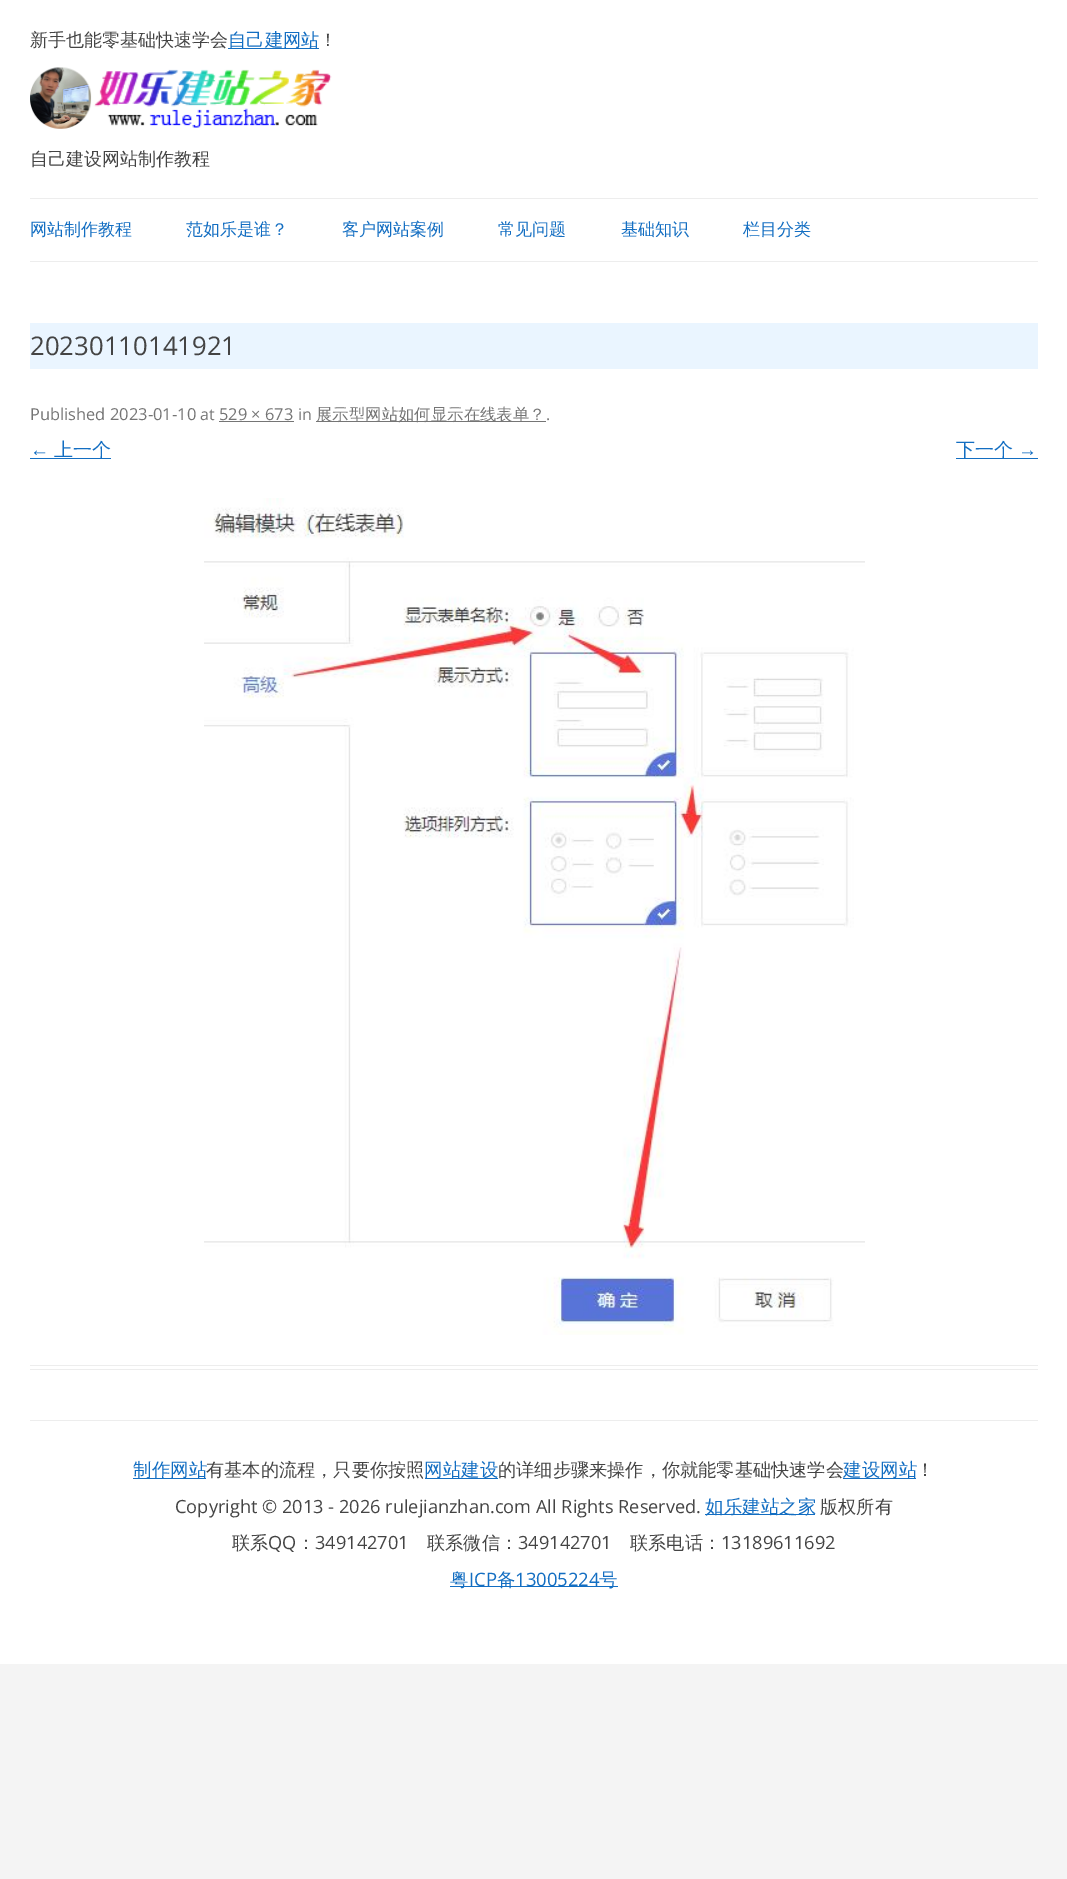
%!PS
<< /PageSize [1067 1879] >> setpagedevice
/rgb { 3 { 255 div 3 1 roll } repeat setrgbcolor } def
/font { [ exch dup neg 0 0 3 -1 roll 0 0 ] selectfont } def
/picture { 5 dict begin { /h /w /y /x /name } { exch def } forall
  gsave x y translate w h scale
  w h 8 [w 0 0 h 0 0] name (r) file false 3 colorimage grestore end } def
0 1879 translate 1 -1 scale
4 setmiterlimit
244 244 244 rgb
0 0 1067 1879 rectfill
255 255 255 rgb
0 0 1067 1664 rectfill
19 110 194 rgb
228 48 91 1 rectfill
(img/1.rgb) 30 67 62 62 picture
(img/2.rgb) 91 69 241 59 picture
[
  [30 198 1008 1 237 237 237]
  [30 261 1008 1 237 237 237]
  [30 1365 1008 1 237 237 237]
  [30 1369 1008 1 237 237 237]
  [30 323 1008 46 234 245 255]
  [219 421 75 1 117 117 117]
  [316 421 230 1 117 117 117]
  [30 458 81 1 19 110 194]
  [956 458 82 1 19 110 194]
] { aload pop rgb rectfill } forall
(img/3.rgb) 204 498 661 837 picture
[
  [30 1420 1008 1 237 237 237]
  [133 1478 73 1 19 110 194]
  [425 1478 73 1 19 110 194]
  [843 1478 73 1 19 110 194]
  [705 1514 110 1 19 110 194]
  [450 1586 168 1 19 110 194]
] { aload pop rgb rectfill } forall
/WenQuanYiZenHei-Medium 18 font
68 68 68 rgb
30 46 moveto (新手也能零基础快速学会) show
/WenQuanYiZenHei-Medium 18.25 font
19 110 194 rgb
228 46 moveto (自己建网站) show
/WenQuanYiZenHei-Medium 18 font
68 68 68 rgb
319 46 moveto (！) show
30 165 moveto (自己建设网站制作教程) show
/WenQuanYiZenHei-Medium 17 font
19 110 194 rgb
[
  [(网站制作教程) 30 235]
  [(范如乐是谁？) 186 235]
  [(客户网站案例) 342 235]
  [(常见问题) 498 235]
  [(基础知识) 621 235]
  [(栏目分类) 743 235]
] { aload pop moveto show } forall
/OpenSans-Regular 25.75 font
68 68 68 rgb
30 355 moveto (20230110141921) show
/OpenSans-Regular 16.4 font
117 117 117 rgb
30 420 moveto (Published) show
/OpenSans-Regular 16.5 font
110 420 moveto (2023-01-10) show
/OpenSans-Regular 16 font
200 420 moveto (at) show
/OpenSans-Regular 16.4 font
219 420 moveto (529 × 673) show
/OpenSans-Regular 16 font
298 420 moveto (in) show
/WenQuanYiZenHei-Medium 16.4 font
316 420 moveto (展示型网站如何显示在线表单？) show
/OpenSans-Regular 16 font
546 420 moveto (.) show
/LiberationSans-Regular 19 font
19 110 194 rgb
30 456 moveto (←) show
/WenQuanYiZenHei-Medium 19 font
54 456 moveto (上一个) show
956 456 moveto (下一个) show
/LiberationSans-Regular 19 font
1018 456 moveto (→) show
/WenQuanYiZenHei-Medium 18.5 font
133 1476 moveto (制作网站) show
/WenQuanYiZenHei-Medium 18.2 font
68 68 68 rgb
206 1476 moveto (有基本的流程，只要你按照) show
/WenQuanYiZenHei-Medium 18.5 font
19 110 194 rgb
424 1476 moveto (网站建设) show
/WenQuanYiZenHei-Medium 18.2 font
68 68 68 rgb
498 1476 moveto (的详细步骤来操作，你就能零基础快速学会) show
/WenQuanYiZenHei-Medium 18.5 font
19 110 194 rgb
843 1476 moveto (建设网站) show
/WenQuanYiZenHei-Medium 18.2 font
68 68 68 rgb
916 1476 moveto (！) show
/OpenSans-Regular 18.2 font
175 1513 moveto (Copyright © 2013 - 2026 rulejianzhan.com All Rights Reserved.) show
/WenQuanYiZenHei-Medium 18.5 font
19 110 194 rgb
705 1513 moveto (如乐建站之家) show
/WenQuanYiZenHei-Medium 18.2 font
68 68 68 rgb
820 1513 moveto (版权所有) show
232 1549 moveto (联系) show
/OpenSans-Regular 18.2 font
268 1549 moveto (QQ) show
/WenQuanYiZenHei-Medium 18.2 font
297 1549 moveto (：) show
/OpenSans-Regular 18.2 font
315 1549 moveto (349142701) show
/WenQuanYiZenHei-Medium 18.2 font
427 1549 moveto (联系微信：) show
/OpenSans-Regular 18.2 font
518 1549 moveto (349142701) show
/WenQuanYiZenHei-Medium 18.2 font
630 1549 moveto (联系电话：) show
/OpenSans-Regular 18.2 font
721 1549 moveto (13189611692) show
/WenQuanYiZenHei-Medium 18.5 font
19 110 194 rgb
450 1586 moveto (粤) show
/OpenSans-Regular 18.5 font
469 1586 moveto (ICP) show
/WenQuanYiZenHei-Medium 18.5 font
497 1586 moveto (备) show
/OpenSans-Regular 18.5 font
515 1586 moveto (13005224) show
/WenQuanYiZenHei-Medium 18.5 font
599 1586 moveto (号) show
showpage
